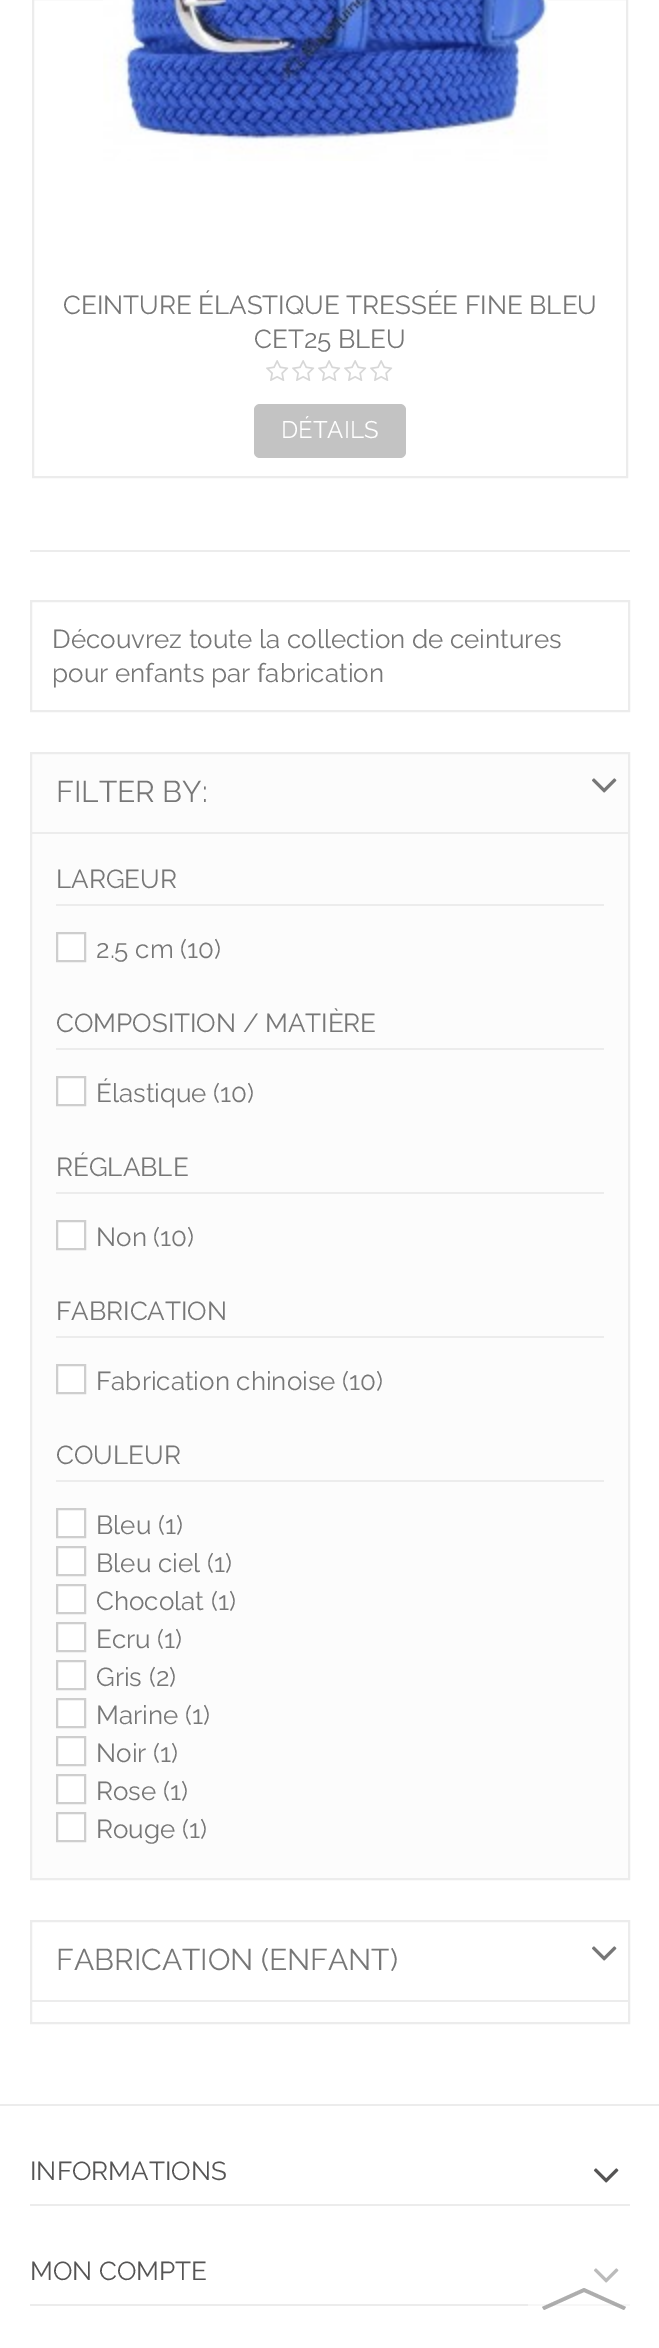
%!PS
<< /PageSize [659 2348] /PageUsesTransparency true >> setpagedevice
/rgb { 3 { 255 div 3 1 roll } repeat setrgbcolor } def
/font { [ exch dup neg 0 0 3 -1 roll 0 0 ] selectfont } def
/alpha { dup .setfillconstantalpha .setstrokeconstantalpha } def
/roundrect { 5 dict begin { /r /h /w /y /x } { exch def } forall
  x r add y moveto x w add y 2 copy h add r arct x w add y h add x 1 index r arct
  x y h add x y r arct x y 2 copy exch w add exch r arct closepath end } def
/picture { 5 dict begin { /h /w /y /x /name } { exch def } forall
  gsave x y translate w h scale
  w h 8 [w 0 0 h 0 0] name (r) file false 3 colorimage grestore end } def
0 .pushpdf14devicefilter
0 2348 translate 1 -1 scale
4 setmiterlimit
255 255 255 rgb
0 0 659 2348 rectfill
236 236 236 rgb
2 setlinewidth
33 -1 594 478 rectstroke
(img/1.rgb) 103 0 445 161 picture
(img/2.rgb) 266 360 23 21 picture
(img/2.rgb) 292 360 23 21 picture
(img/2.rgb) 318 360 23 21 picture
(img/2.rgb) 344 360 23 21 picture
(img/2.rgb) 370 360 23 21 picture
195 195 195 rgb
254 404 152 54 6 roundrect fill
236 236 236 rgb
30 550 600 2 rectfill
31 601 598 110 rectstroke
252 252 252 rgb
31 753 moveto 629 753 lineto 629 1879 lineto 31 1879 lineto closepath gsave fill grestore
236 236 236 rgb
stroke
32 832 596 2 rectfill
(img/3.rgb) 592 778 25 15 picture
56 904 548 2 rectfill
255 255 255 rgb
57 933 moveto 85 933 lineto 85 961 lineto 57 961 lineto closepath gsave fill grestore
206 206 206 rgb
stroke
236 236 236 rgb
56 1048 548 2 rectfill
255 255 255 rgb
57 1077 moveto 85 1077 lineto 85 1105 lineto 57 1105 lineto closepath gsave fill grestore
206 206 206 rgb
stroke
236 236 236 rgb
56 1192 548 2 rectfill
255 255 255 rgb
57 1221 moveto 85 1221 lineto 85 1249 lineto 57 1249 lineto closepath gsave fill grestore
206 206 206 rgb
stroke
236 236 236 rgb
56 1336 548 2 rectfill
255 255 255 rgb
57 1365 moveto 85 1365 lineto 85 1393 lineto 57 1393 lineto closepath gsave fill grestore
206 206 206 rgb
stroke
236 236 236 rgb
56 1480 548 2 rectfill
255 255 255 rgb
57 1509 moveto 85 1509 lineto 85 1537 lineto 57 1537 lineto closepath gsave fill grestore
206 206 206 rgb
stroke
255 255 255 rgb
57 1547 moveto 85 1547 lineto 85 1575 lineto 57 1575 lineto closepath gsave fill grestore
206 206 206 rgb
stroke
255 255 255 rgb
57 1585 moveto 85 1585 lineto 85 1613 lineto 57 1613 lineto closepath gsave fill grestore
206 206 206 rgb
stroke
255 255 255 rgb
57 1623 moveto 85 1623 lineto 85 1651 lineto 57 1651 lineto closepath gsave fill grestore
206 206 206 rgb
stroke
255 255 255 rgb
57 1661 moveto 85 1661 lineto 85 1689 lineto 57 1689 lineto closepath gsave fill grestore
206 206 206 rgb
stroke
255 255 255 rgb
57 1699 moveto 85 1699 lineto 85 1727 lineto 57 1727 lineto closepath gsave fill grestore
206 206 206 rgb
stroke
255 255 255 rgb
57 1737 moveto 85 1737 lineto 85 1765 lineto 57 1765 lineto closepath gsave fill grestore
206 206 206 rgb
stroke
255 255 255 rgb
57 1775 moveto 85 1775 lineto 85 1803 lineto 57 1803 lineto closepath gsave fill grestore
206 206 206 rgb
stroke
255 255 255 rgb
57 1813 moveto 85 1813 lineto 85 1841 lineto 57 1841 lineto closepath gsave fill grestore
206 206 206 rgb
stroke
236 236 236 rgb
31 1921 598 102 rectstroke
32 2000 596 2 rectfill
(img/4.rgb) 592 1946 25 15 picture
0 2104 659 2 rectfill
30 2204 600 2 rectfill
(img/5.rgb) 593 2168 26 15 picture
30 2304 498 2 rectfill
247 247 247 rgb
528 2304 102 2 rectfill
(img/6.rgb) 593 2268 26 15 picture
0.6 alpha
119 119 119 rgb
584 2292 moveto 624 2310 lineto 626 2307 lineto 584 2288 lineto closepath 542 2307 moveto 544 2310 lineto 584 2292 lineto 584 2288 lineto closepath fill
/Raleway-Regular 26 font
1 alpha
63 314 moveto (CEINTURE ÉLASTIQUE TRESSÉE FINE BLEU) show
254 348 moveto (CET25 BLEU) show
/Raleway-Regular 24 font
255 255 255 rgb
281 438 moveto (DÉTAILS) show
/Raleway-Regular 26 font
119 119 119 rgb
52 648 moveto (Découvrez toute la collection de ceintures) show
52 682 moveto (pour enfants par fabrication) show
/Raleway-Regular 30 font
56 802 moveto (FILTER BY:) show
/Raleway-Regular 26 font
[
  [(LARGEUR) 56 888]
  [(2.5 cm \(10\)) 96 958]
  [(COMPOSITION / MATIÈRE) 56 1032]
  [(Élastique \(10\)) 96 1102]
  [(RÉGLABLE) 56 1176]
  [(Non \(10\)) 96 1246]
  [(FABRICATION) 56 1320]
  [(Fabrication chinoise \(10\)) 96 1390]
  [(COULEUR) 56 1464]
  [(Bleu \(1\)) 96 1534]
  [(Bleu ciel \(1\)) 96 1572]
  [(Chocolat \(1\)) 96 1610]
  [(Ecru \(1\)) 96 1648]
  [(Gris \(2\)) 96 1686]
  [(Marine \(1\)) 96 1724]
  [(Noir \(1\)) 96 1762]
  [(Rose \(1\)) 96 1800]
  [(Rouge \(1\)) 96 1838]
] { aload pop moveto show } forall
/Raleway-Regular 30 font
56 1970 moveto (FABRICATION \(ENFANT\)) show
/Raleway-Regular 26 font
85 84 84 rgb
30 2180 moveto (INFORMATIONS) show
30 2280 moveto (MON COMPTE) show
.poppdf14devicefilter showpage
